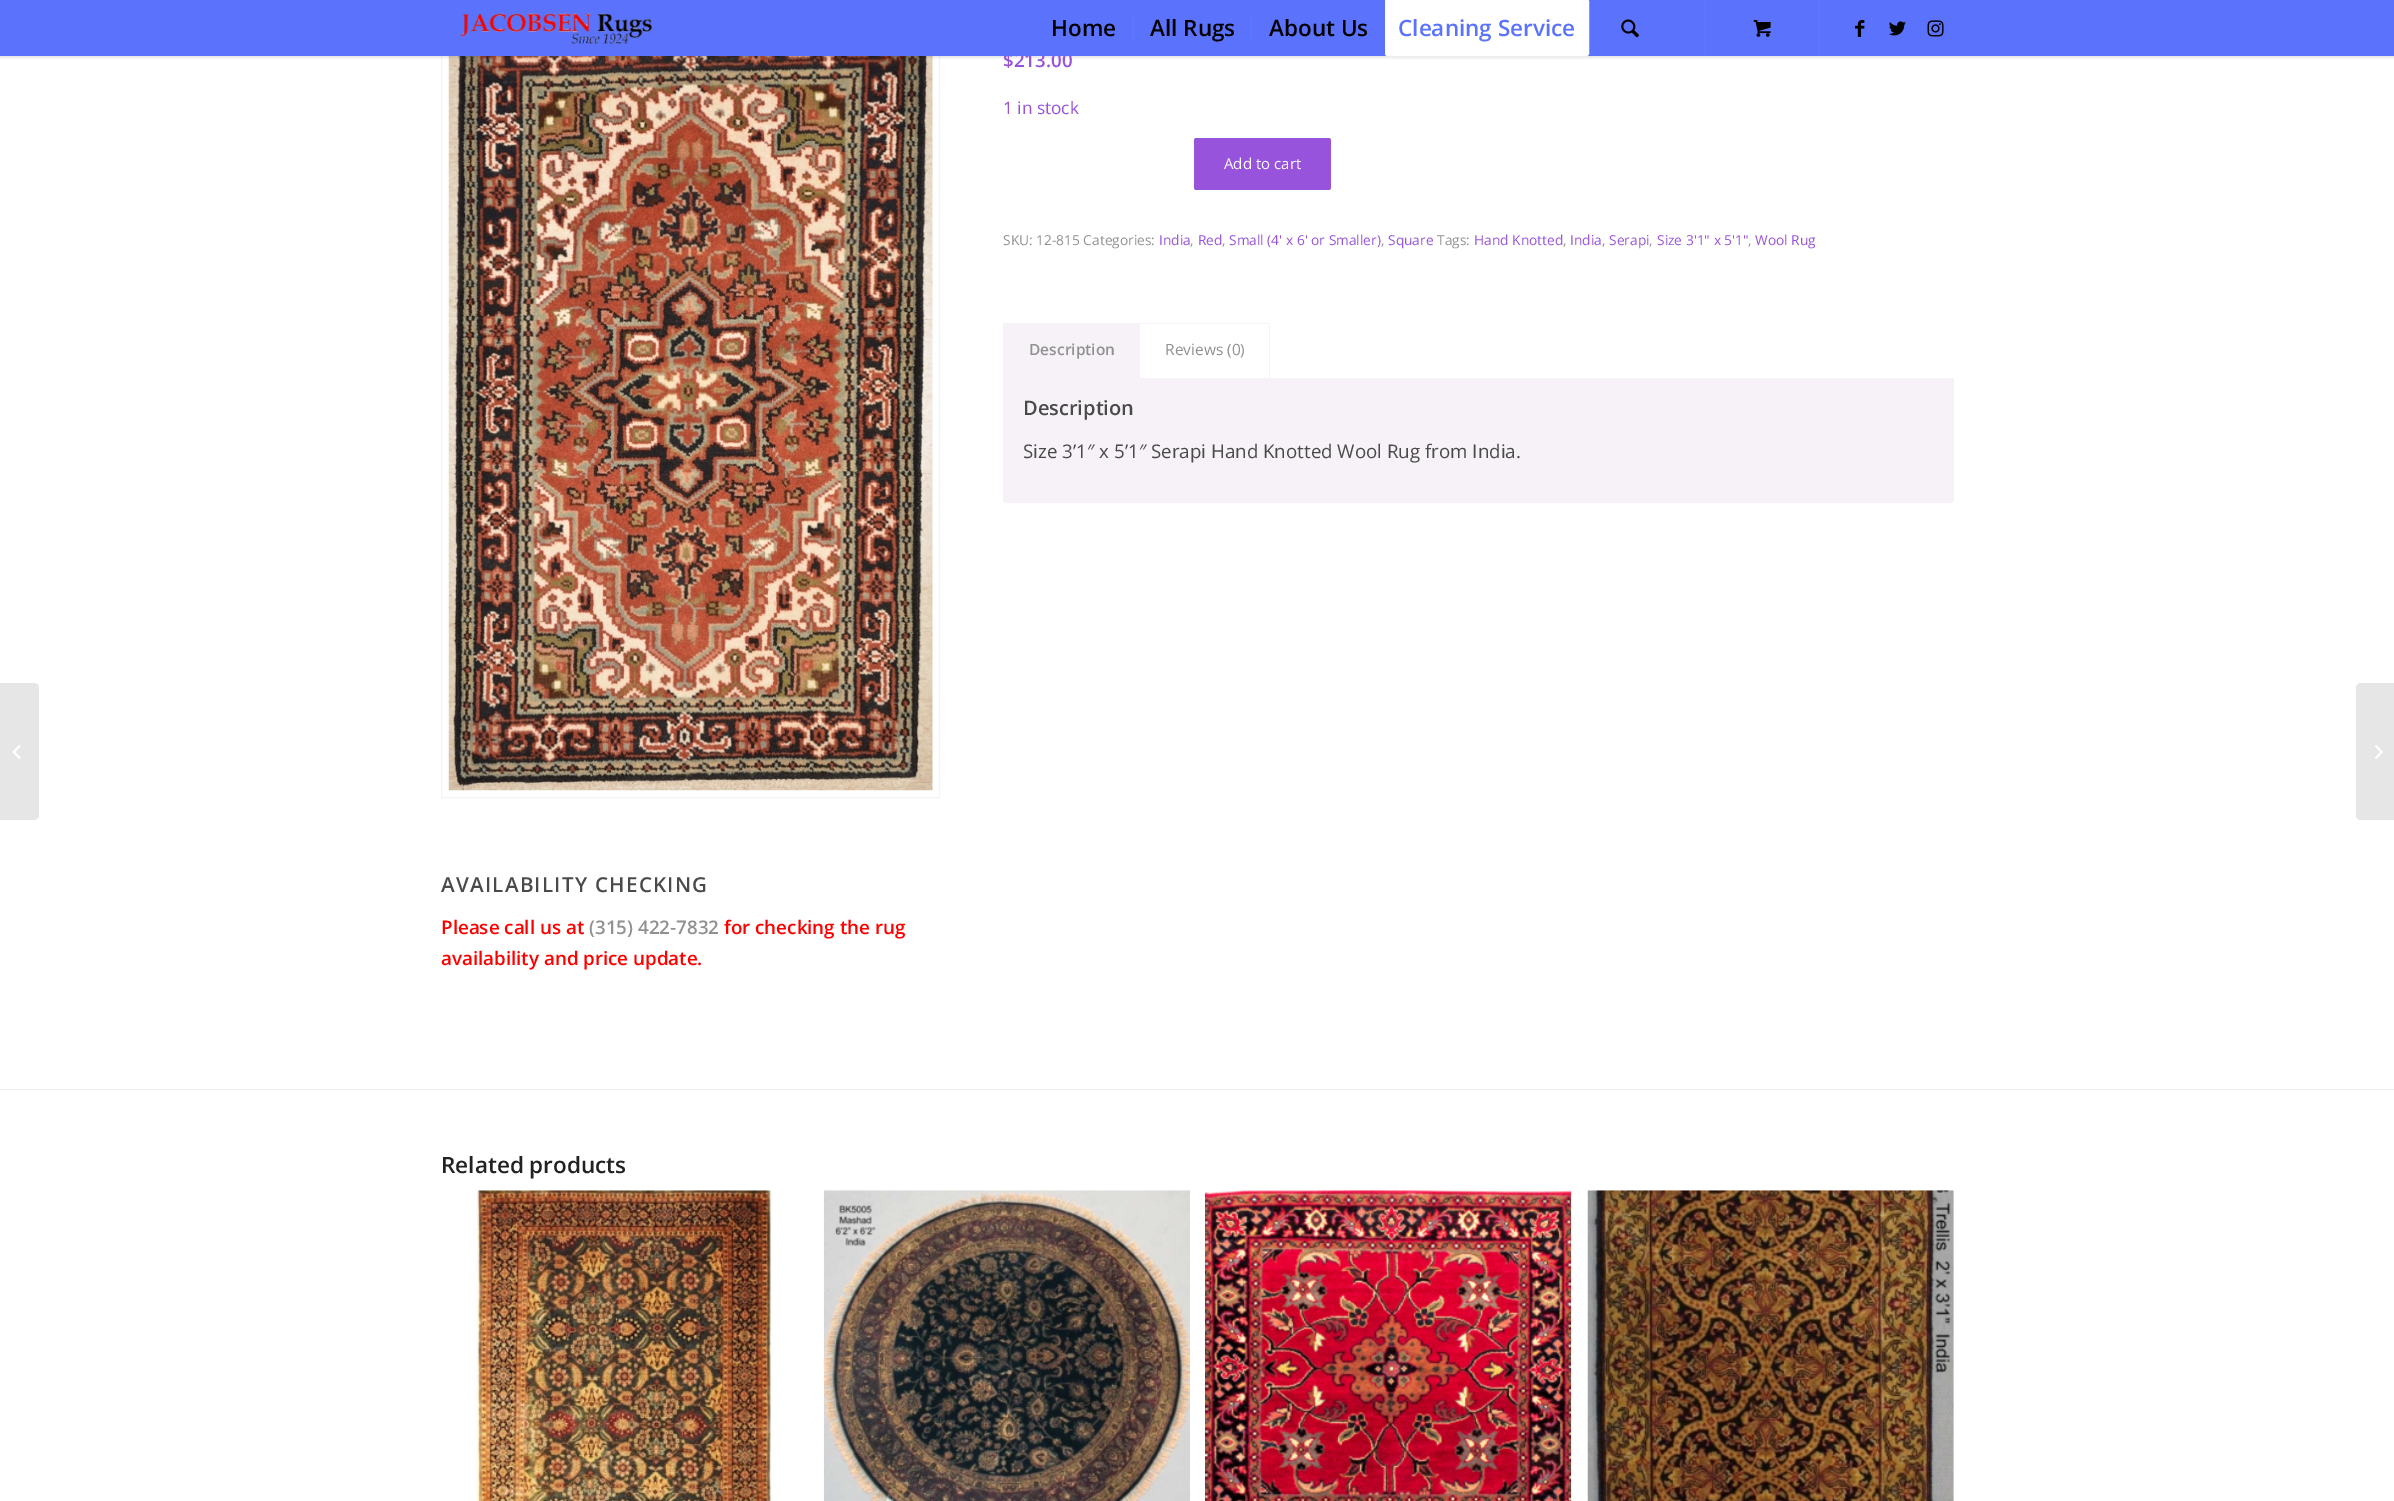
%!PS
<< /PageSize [2394 1501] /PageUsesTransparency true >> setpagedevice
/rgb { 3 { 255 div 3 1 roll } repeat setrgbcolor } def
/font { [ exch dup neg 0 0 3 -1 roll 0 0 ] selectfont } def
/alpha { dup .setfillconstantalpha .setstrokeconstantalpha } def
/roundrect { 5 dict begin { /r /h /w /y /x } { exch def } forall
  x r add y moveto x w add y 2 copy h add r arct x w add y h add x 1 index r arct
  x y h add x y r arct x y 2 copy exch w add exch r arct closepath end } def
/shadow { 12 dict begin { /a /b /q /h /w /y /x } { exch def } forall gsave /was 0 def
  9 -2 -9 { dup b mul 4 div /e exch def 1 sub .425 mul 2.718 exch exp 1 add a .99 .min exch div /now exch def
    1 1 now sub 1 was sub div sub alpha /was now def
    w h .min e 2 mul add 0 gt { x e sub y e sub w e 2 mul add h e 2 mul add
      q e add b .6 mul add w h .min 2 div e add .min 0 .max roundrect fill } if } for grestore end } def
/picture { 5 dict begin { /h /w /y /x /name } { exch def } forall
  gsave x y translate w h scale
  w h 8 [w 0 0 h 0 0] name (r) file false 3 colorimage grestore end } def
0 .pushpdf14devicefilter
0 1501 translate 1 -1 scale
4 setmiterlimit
255 255 255 rgb
0 0 2394 1501 rectfill
246 242 247 rgb
441.5 -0.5 498 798 rectstroke
(img/8.rgb) 448 56 485 735 picture
0 0 0 rgb
-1 -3 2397 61 0 1 0.1 shadow
230 230 230 rgb
0 683 moveto 34 683 lineto 37 683 39 685 39 688 curveto 39 815 lineto 39 818 37 820 34 820 curveto 0 820 lineto closepath fill
(img/7.rgb) 12 745 9 14 picture
151 83 219 rgb
1194 138 137 52 2.5 roundrect fill
246 242 247 rgb
1139 323 130 1 rectfill
1003 323 137 55 rectfill
1003.5 378.5 moveto 1953.5 378.5 lineto 1953.5 499 lineto 1953.5 501 1952 502.5 1950 502.5 curveto 1007 502.5 lineto 1005 502.5 1003.5 501 1003.5 499 curveto closepath gsave fill grestore
stroke
1269 324 1 55 rectfill
235 235 235 rgb
0 1089 2394 1 rectfill
(img/9.rgb) 476 1190 297 311 picture
(img/10.rgb) 823 1190 367 311 picture
(img/11.rgb) 1205 1190 367 311 picture
(img/12.rgb) 1587 1190 367 311 picture
230 230 230 rgb
2361 683 moveto 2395 683 lineto 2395 820 lineto 2361 820 lineto 2358 820 2356 818 2356 815 curveto 2356 688 lineto 2356 685 2358 683 2361 683 curveto closepath fill
(img/13.rgb) 2375 745 8 14 picture
/OpenSans-SemiBold 18.75 font
151 83 219 rgb
1003 67 moveto ($213.00) show
90 114 252 rgb
0 0 2394 56 rectfill
(img/6.rgb) 1927 20 17 17 picture
(img/5.rgb) 1889 21 17 15 picture
(img/4.rgb) 1855 20 10 17 picture
(img/3.rgb) 1753 20 18 17 picture
235 79 97 rgb
1819 0 1 56 rectfill
(img/2.rgb) 1621 19 18 19 picture
255 255 255 rgb
1386.5 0.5 201 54 1 roundrect gsave fill grestore
3 setlinewidth
stroke
/OpenSans-SemiBold 22.5 font
90 114 252 rgb
1398 36 moveto (Cleaning Service) show
0 0 0 rgb
1269 36 moveto (About Us) show
235 79 97 rgb
1251 13 1 30 rectfill
0 0 0 rgb
1150 36 moveto (All Rugs) show
235 79 97 rgb
1133 13 1 30 rectfill
0 0 0 rgb
1051 36 moveto (Home) show
235 79 97 rgb
1705 0 1 56 rectfill
(img/1.rgb) 460 13 192 31 picture
/OpenSans-Regular 17.25 font
151 83 219 rgb
1003 114 moveto (1 in stock) show
/OpenSans-Regular 15 font
255 255 255 rgb
1224 169 moveto (Add to cart) show
/OpenSans-Regular 13.75 font
145 145 145 rgb
1003 245 moveto (SKU: 12-815 Categories:) show
151 83 219 rgb
1159 245 moveto (India) show
145 145 145 rgb
1190 245 moveto (,) show
151 83 219 rgb
1198 245 moveto (Red) show
145 145 145 rgb
1222 245 moveto (,) show
151 83 219 rgb
1229 245 moveto (Small \(4' x 6' or Smaller\)) show
145 145 145 rgb
1381 245 moveto (,) show
151 83 219 rgb
1388 245 moveto (Square) show
145 145 145 rgb
1437 245 moveto (Tags:) show
151 83 219 rgb
1474 245 moveto (Hand Knotted) show
145 145 145 rgb
1563 245 moveto (,) show
151 83 219 rgb
1570 245 moveto (India) show
145 145 145 rgb
1602 245 moveto (,) show
151 83 219 rgb
1609 245 moveto (Serapi) show
145 145 145 rgb
1649 245 moveto (,) show
151 83 219 rgb
1657 245 moveto (Size 3'1" x 5'1") show
145 145 145 rgb
1748 245 moveto (,) show
151 83 219 rgb
1755 245 moveto (Wool Rug) show
/OpenSans-SemiBold 15.5 font
145 145 145 rgb
1029 355 moveto (Description) show
/OpenSans-Regular 15.5 font
1165 355 moveto (Reviews \(0\)) show
/OpenSans-SemiBold 20 font
74 74 74 rgb
1023 415 moveto (Description) show
/OpenSans-Regular 18.75 font
1023 458 moveto (Size 3’1″ x 5’1″ Serapi Hand Knotted Wool Rug from India.) show
/OpenSans-SemiBold 20.6 font
441 892 moveto 1.25 0 (AVAILABILITY CHECKING) ashow
/OpenSans-SemiBold 18.75 font
255 0 0 rgb
441 934 moveto (Please call us at) show
145 145 145 rgb
589 934 moveto (\(315\) 422-7832) show
255 0 0 rgb
724 934 moveto (for checking the rug) show
441 965 moveto (availability and price update.) show
/OpenSans-SemiBold 22.5 font
34 34 34 rgb
441 1173 moveto (Related products) show
.poppdf14devicefilter showpage
